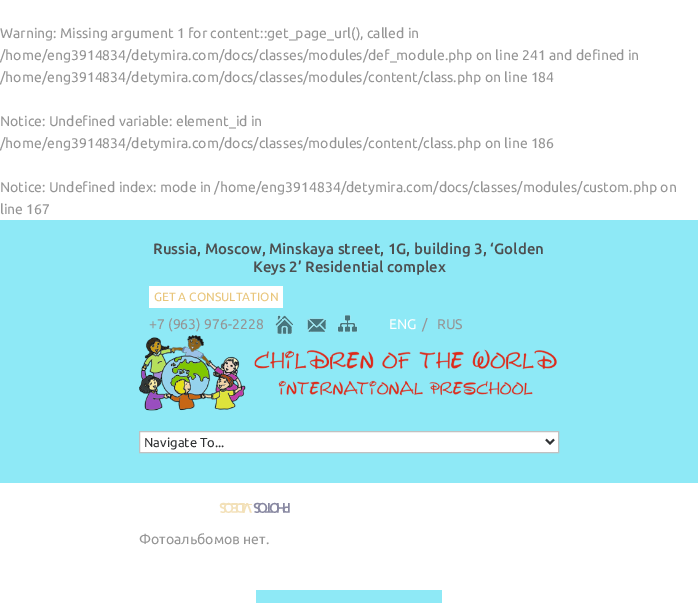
%!PS
<< /PageSize [698 603] >> setpagedevice
/rgb { 3 { 255 div 3 1 roll } repeat setrgbcolor } def
/font { [ exch dup neg 0 0 3 -1 roll 0 0 ] selectfont } def
/picture { 5 dict begin { /h /w /y /x /name } { exch def } forall
  gsave x y translate w h scale
  w h 8 [w 0 0 h 0 0] name (r) file false 3 colorimage grestore end } def
0 603 translate 1 -1 scale
4 setmiterlimit
255 255 255 rgb
0 0 698 603 rectfill
142 233 246 rgb
0 220 698 263 rectfill
255 255 255 rgb
149 286 134 22 rectfill
(img/1.rgb) 275 315 18 19 picture
(img/2.rgb) 307 318 19 14 picture
(img/3.rgb) 337 315 21 17 picture
(img/4.rgb) 139 335 418 76 picture
139.5 431.5 moveto 558.5 431.5 lineto 558.5 452.5 lineto 139.5 452.5 lineto closepath gsave fill grestore
193 193 193 rgb
stroke
47 49 51 rgb
2 setlinewidth
546 439.5 moveto 550 443.5 lineto 554 439.5 lineto stroke
243 225 185 rgb
222 504 30 1 rectfill
142 233 246 rgb
256 590 186 13 rectfill
/Ubuntu-Regular 14 font
149 149 149 rgb
[
  [(Warning: Missing argument 1 for content::get_page_url\(\), called in) 0 38]
  [(/home/eng3914834/detymira.com/docs/classes/modules/def_module.php on line 241 and defined in) 0 60]
  [(/home/eng3914834/detymira.com/docs/classes/modules/content/class.php on line 184) 0 82]
  [(Notice: Undefined variable: element_id in) 0 126]
  [(/home/eng3914834/detymira.com/docs/classes/modules/content/class.php on line 186) 0 148]
  [(Notice: Undefined index: mode in /home/eng3914834/detymira.com/docs/classes/modules/custom.php on) 0 192]
  [(line 167) 0 214]
] { aload pop moveto show } forall
/Ubuntu-Medium 15 font
77 79 80 rgb
153 254 moveto (Russia, Moscow, Minskaya street, 1G, building 3, ‘Golden) show
253 272 moveto (Keys 2’ Residential complex) show
/Ubuntu-Regular 12 font
233 198 123 rgb
154 301 moveto (GET A CONSULTATION) show
/Ubuntu-Regular 14 font
149 149 149 rgb
149 329 moveto (+7 \(963\) 976-2228) show
255 255 255 rgb
389 329 moveto (ENG) show
149 149 149 rgb
422 329 moveto (/) show
437 329 moveto (RUS) show
/Ubuntu-Regular 13 font
47 49 51 rgb
144 447 moveto (Navigate To...) show
/Ubuntu-Medium 14 font
243 225 185 rgb
gsave 252 503 translate 180 rotate 0 0 moveto -3.5 0 (VIDEOS) ashow grestore
137 137 162 rgb
gsave 291 503 translate 180 rotate 0 0 moveto -3.75 0 (PHOTOS) ashow grestore
/Ubuntu-Regular 14 font
149 149 149 rgb
139 544 moveto (Фотоальбомов нет.) show
showpage
